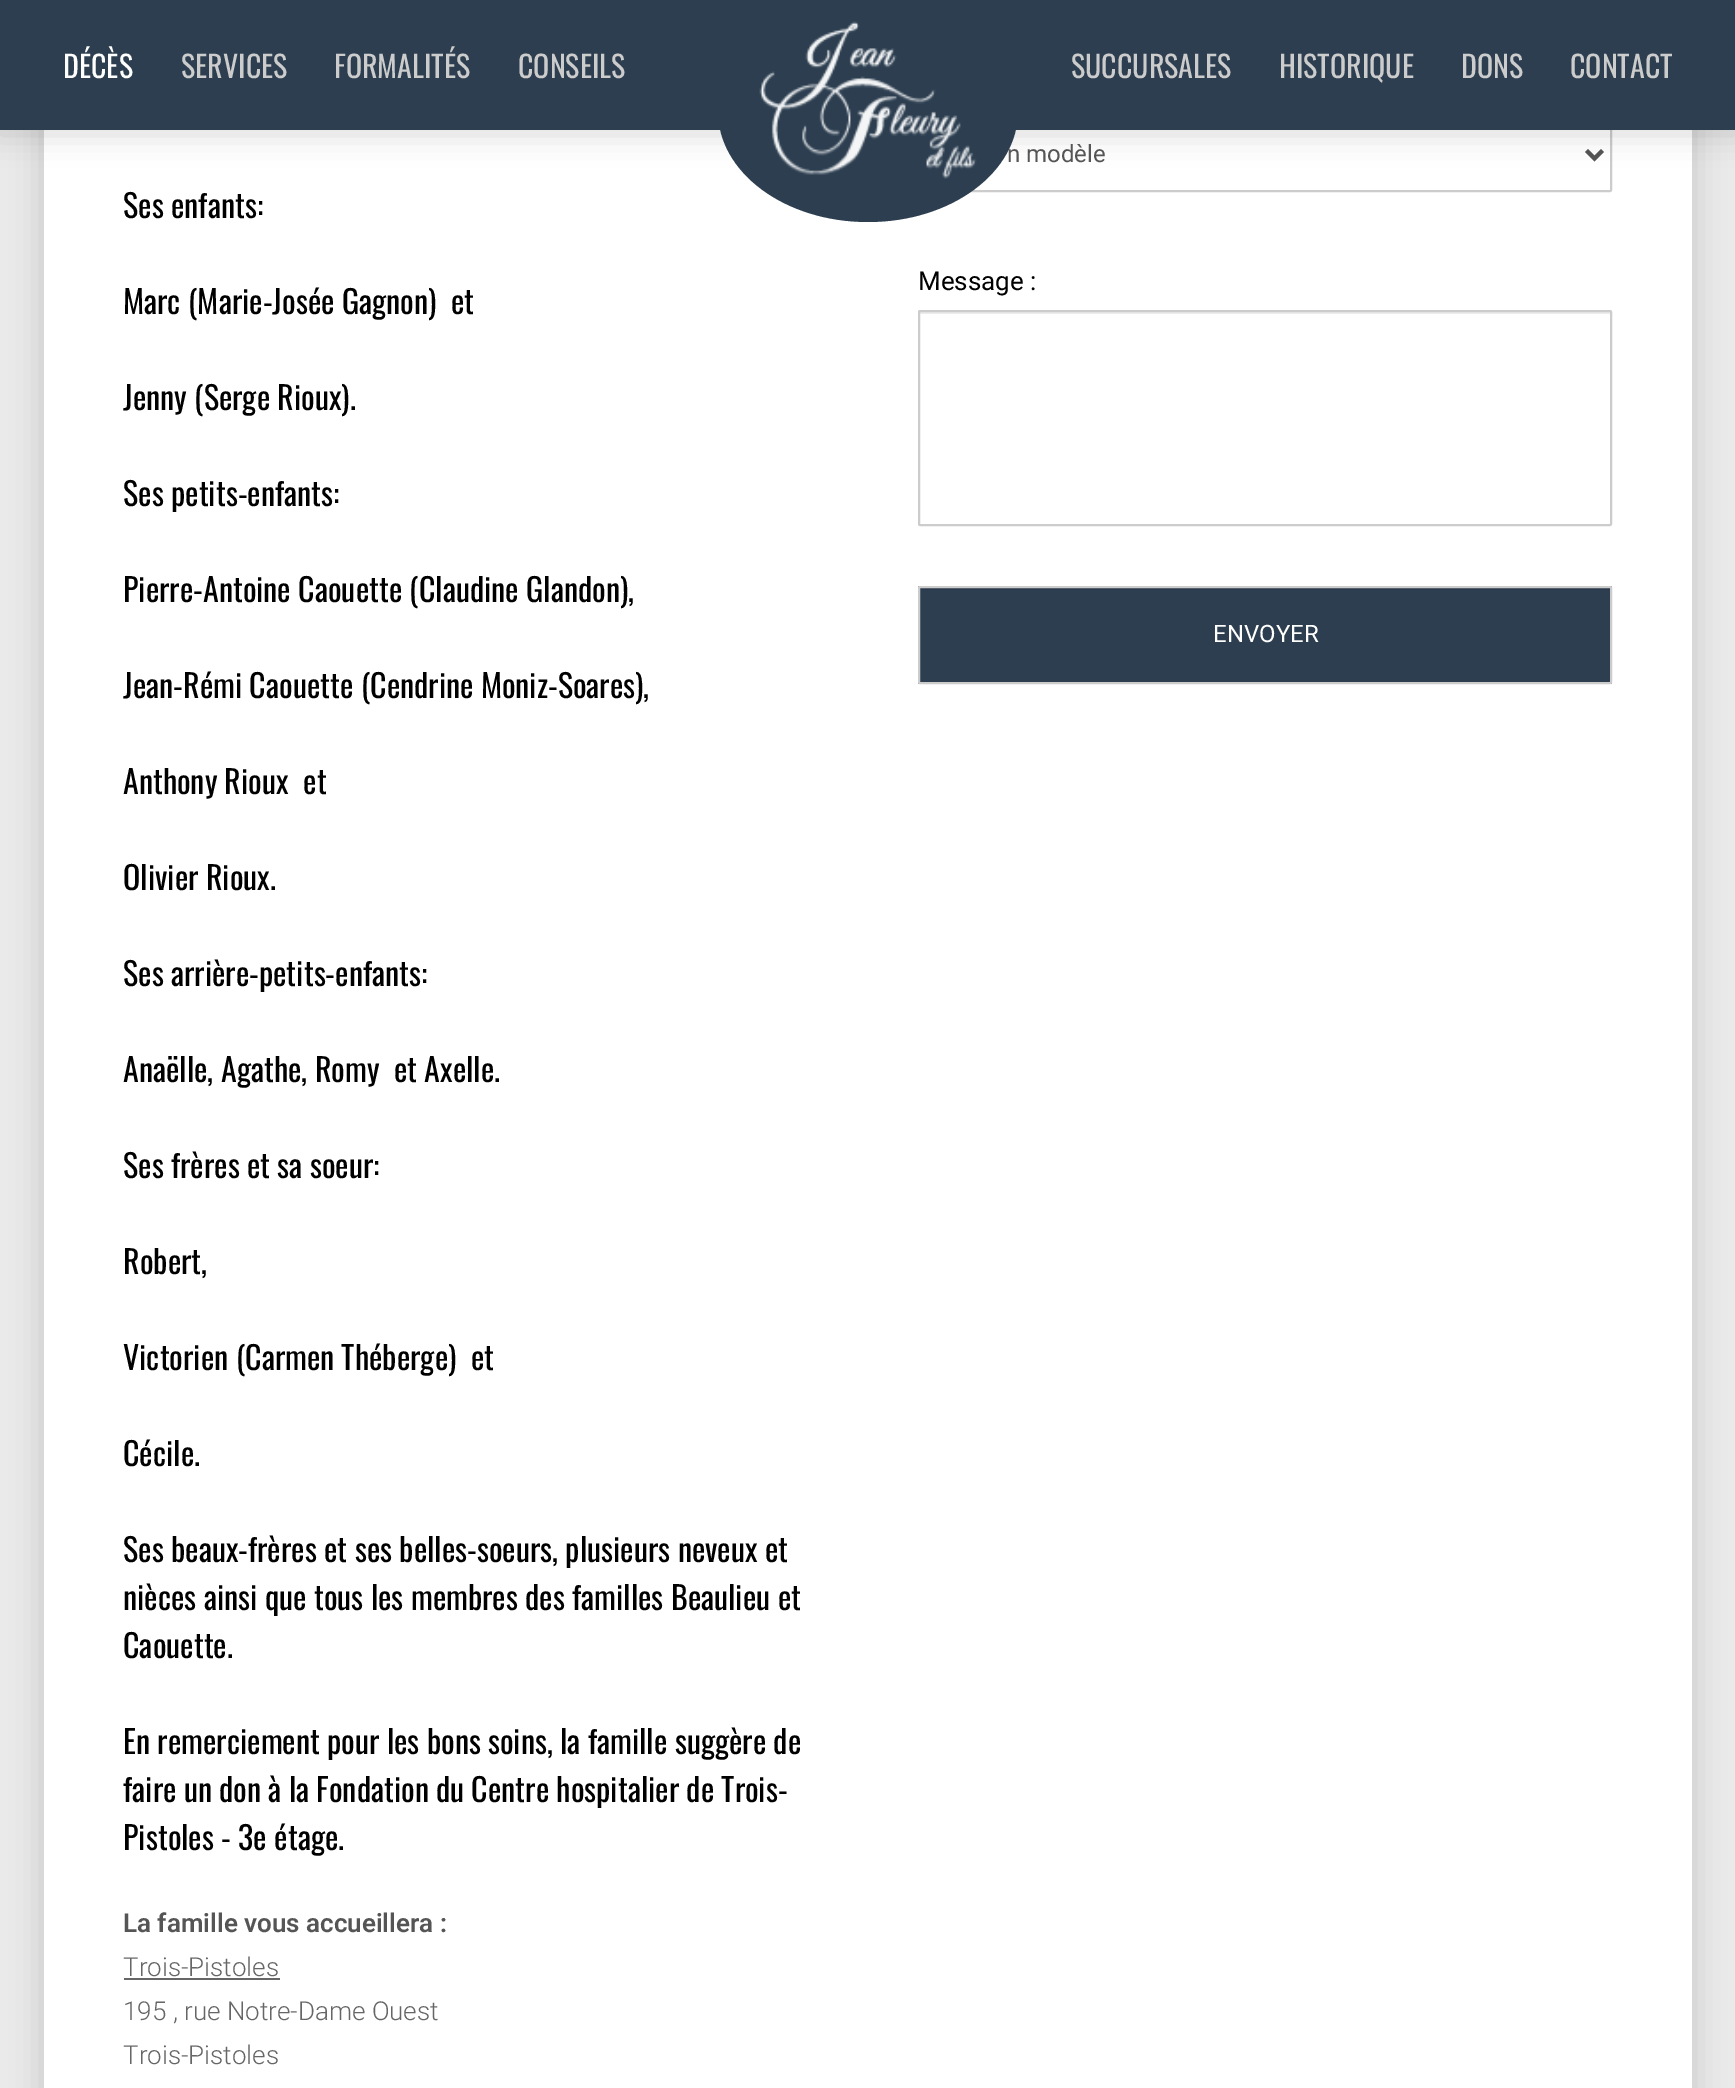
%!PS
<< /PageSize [1735 2088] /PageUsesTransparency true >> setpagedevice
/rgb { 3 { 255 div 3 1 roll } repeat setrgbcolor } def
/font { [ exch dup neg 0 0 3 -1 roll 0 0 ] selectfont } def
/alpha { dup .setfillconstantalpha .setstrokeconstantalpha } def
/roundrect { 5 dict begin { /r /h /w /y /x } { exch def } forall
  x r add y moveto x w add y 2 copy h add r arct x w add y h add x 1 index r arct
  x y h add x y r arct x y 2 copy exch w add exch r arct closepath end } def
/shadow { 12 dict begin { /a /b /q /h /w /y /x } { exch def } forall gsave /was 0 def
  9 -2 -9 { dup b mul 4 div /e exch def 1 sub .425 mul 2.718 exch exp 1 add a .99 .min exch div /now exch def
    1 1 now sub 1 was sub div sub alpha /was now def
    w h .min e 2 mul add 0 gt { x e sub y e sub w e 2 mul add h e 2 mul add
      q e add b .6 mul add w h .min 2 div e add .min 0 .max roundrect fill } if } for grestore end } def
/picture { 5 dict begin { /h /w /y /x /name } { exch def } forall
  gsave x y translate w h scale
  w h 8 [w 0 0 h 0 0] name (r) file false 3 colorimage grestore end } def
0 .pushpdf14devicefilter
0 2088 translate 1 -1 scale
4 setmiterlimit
234 234 234 rgb
0 0 1735 2088 rectfill
0 0 0 rgb
42 -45 1652 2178 0 15 0.15 shadow
255 255 255 rgb
44 130 1648 1958 rectfill
204 204 204 rgb
2 setlinewidth
919 117 692 74 1 roundrect stroke
85 85 85 rgb
4 setlinewidth
1586.5 150.5 moveto 1594.5 158.5 lineto 1602.5 150.5 lineto stroke
0 0 0 rgb
-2 0 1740 134 0 15 0.15 shadow
[
  [0 0 1735 130 44 62 80]
  [124 1978 156 2 102 102 102]
  [920 312 690 2 236 236 236]
] { aload pop rgb rectfill } forall
204 204 204 rgb
2 setlinewidth
919 311 692 214 1 roundrect stroke
44 62 80 rgb
918 586 694 98 2 roundrect fill
41 57 74 rgb
920 588 690 2 rectfill
204 204 204 rgb
919 587 692 96 1 roundrect stroke
/Oswald-Regular 30 font
255 255 255 rgb
63 78 moveto (DÉCÈS) show
204 204 204 rgb
[
  [(SERVICES) 181 78]
  [(FORMALITÉS) 334 78]
  [(CONSEILS) 518 78]
  [(SUCCURSALES) 1071 78]
  [(HISTORIQUE) 1279 78]
  [(DONS) 1461 78]
  [(CONTACT) 1570 78]
] { aload pop moveto show } forall
/Oswald-Regular 32 font
0 0 0 rgb
[
  [(Ses enfants:) 123 218]
  [(Marc \(Marie-Josée Gagnon\)  et) 123 314]
  [(Jenny \(Serge Rioux\).) 123 410]
  [(Ses petits-enfants:) 123 506]
  [(Pierre-Antoine Caouette \(Claudine Glandon\),) 123 602]
  [(Jean-Rémi Caouette \(Cendrine Moniz-Soares\),) 123 698]
  [(Anthony Rioux  et) 123 794]
  [(Olivier Rioux.) 123 890]
  [(Ses arrière-petits-enfants:) 123 986]
  [(Anaëlle, Agathe, Romy  et Axelle.) 123 1082]
  [(Ses frères et sa soeur:) 123 1178]
  [(Robert,) 123 1274]
  [(Victorien \(Carmen Théberge\)  et) 123 1370]
  [(Cécile.) 123 1466]
  [(Ses beaux-frères et ses belles-soeurs, plusieurs neveux et) 123 1562]
  [(nièces ainsi que tous les membres des familles Beaulieu et) 123 1610]
  [(Caouette.) 123 1658]
  [(En remerciement pour les bons soins, la famille suggère de) 123 1754]
  [(faire un don à la Fondation du Centre hospitalier de Trois-) 123 1802]
  [(Pistoles - 3e étage.) 123 1850]
] { aload pop moveto show } forall
/Roboto-SemiBold 26 font
85 85 85 rgb
123 1932 moveto (La famille vous accueillera :) show
/Roboto-Light 26 font
102 102 102 rgb
[
  [(Trois-Pistoles) 123 1976]
  [(195 , rue Notre-Dame Ouest) 123 2020]
  [(Trois-Pistoles) 123 2064]
] { aload pop moveto show } forall
/Roboto-Regular 24 font
85 85 85 rgb
1007 162 moveto (n modèle) show
44 62 80 rgb
868 0 moveto 951 0 1018 49.5 1018 111 curveto 1018 172.5 951 222 868 222 curveto 785 222 718 172.5 718 111 curveto 718 49.5 785 0 868 0 curveto closepath fill
(img/1.rgb) 759 21 218 158 picture
/Roboto-Regular 26 font
0 0 0 rgb
918 290 moveto (Message :) show
/Roboto-Regular 24 font
255 255 255 rgb
1213 642 moveto (ENVOYER) show
.poppdf14devicefilter showpage
